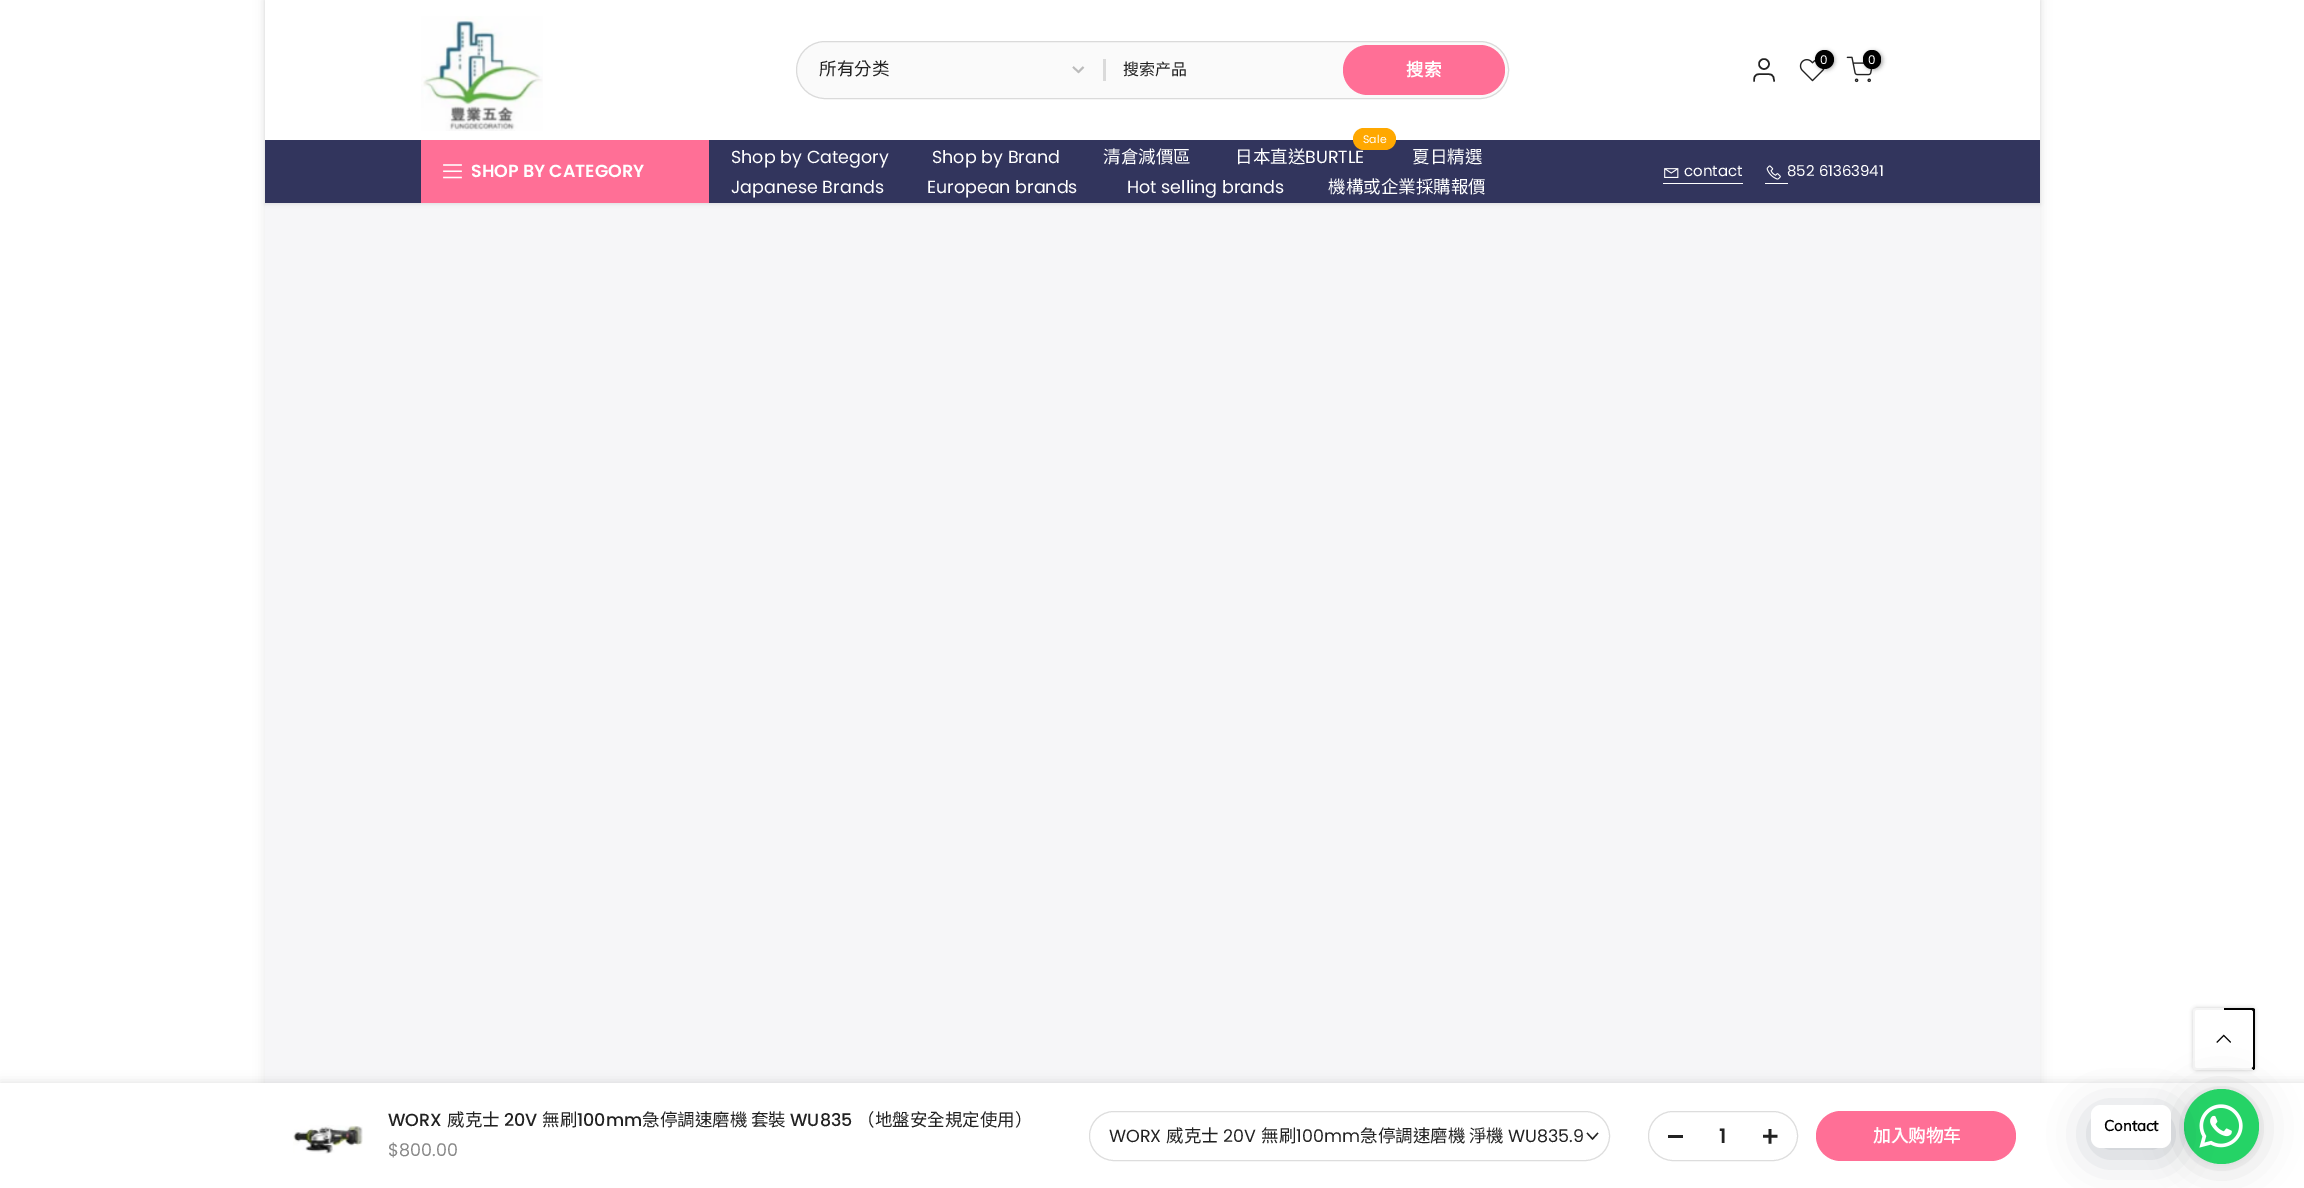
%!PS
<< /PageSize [2304 1188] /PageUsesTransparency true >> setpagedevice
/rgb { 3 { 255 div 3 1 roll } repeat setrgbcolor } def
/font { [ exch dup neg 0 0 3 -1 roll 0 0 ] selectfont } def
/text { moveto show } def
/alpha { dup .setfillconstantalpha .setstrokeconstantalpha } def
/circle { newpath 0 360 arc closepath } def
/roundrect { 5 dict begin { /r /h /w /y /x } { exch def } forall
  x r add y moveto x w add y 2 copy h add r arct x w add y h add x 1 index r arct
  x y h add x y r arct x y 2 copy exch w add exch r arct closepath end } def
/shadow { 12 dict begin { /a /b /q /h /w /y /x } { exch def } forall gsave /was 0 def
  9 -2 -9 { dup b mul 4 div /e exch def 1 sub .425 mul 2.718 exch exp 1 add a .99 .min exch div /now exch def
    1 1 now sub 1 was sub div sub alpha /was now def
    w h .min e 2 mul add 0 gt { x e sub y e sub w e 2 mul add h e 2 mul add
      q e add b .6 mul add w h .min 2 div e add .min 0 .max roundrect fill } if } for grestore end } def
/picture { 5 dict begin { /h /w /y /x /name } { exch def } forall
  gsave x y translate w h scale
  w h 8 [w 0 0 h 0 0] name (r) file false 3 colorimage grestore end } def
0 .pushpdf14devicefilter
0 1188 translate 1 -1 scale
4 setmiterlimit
255 255 255 rgb
0 0 2304 1188 rectfill
0 0 0 rgb
265 -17 1775 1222 0 5.5 0.08 shadow
246 246 248 rgb
265 203 1775 880 rectfill
0 0 0 rgb
265 1 1775 203 0 2 0.1 shadow
255 255 255 rgb
265 0 1775 140 rectfill
(img_01.rgb) 421 16 122 115 picture
34 34 34 rgb
1.5 setlinewidth
1764 64 5 circle stroke
1 setlinecap
1 setlinejoin
1774 81 moveto 0 -7.5 -3.5 -7 -10 -7 rcurveto -7 0 -10 -0.5 -10 7 rcurveto stroke
(img_02.rgb) 1799 59 26 23 picture
0 0 0 rgb
1816 51 19 19 9.5 2 0.3 shadow
1824.5 59.5 9.5 circle fill
(img_03.rgb) 1846 56 27 27 picture
1864 51 19 19 9.5 2 0.3 shadow
1863 50 18 19 9 roundrect fill
250 250 250 rgb
796.5 41.5 712 57 28.5 roundrect gsave fill grestore
218 218 218 rgb
1 setlinewidth
0 setlinecap
0 setlinejoin
stroke
187 187 187 rgb
1.8 setlinewidth
1073 67 moveto 5.5 5 rlineto 5 -5 rlineto stroke
218 218 218 rgb
1103 59 3 22 rectfill
255 111 150 rgb
1343 45 162 50 25 roundrect fill
50 53 93 rgb
265 140 1775 63 rectfill
255 111 150 rgb
421 140 288 63 rectfill
(img_04.rgb) 443 164 19 15 picture
255 168 0 rgb
1353 128 43 22 11 roundrect fill
255 255 255 rgb
1663 183 80 1 rectfill
(img_05.rgb) 1664 168 15 10 picture
1765 183 23 1 rectfill
(img_06.rgb) 1766 165 15 15 picture
0 0 0 rgb
2193 1008 62 62 4 2 0.2 shadow
0 1083 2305 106 0 5.5 0.12 shadow
2224 1039 moveto 29 31 rlineto 1 0 2 -1 2 -2 rcurveto 0 -58 rlineto 0 -1 -1 -2 -3 -2 rcurveto -28 0 rlineto closepath fill
245 245 245 rgb
2224 1039 moveto 0 -31 rlineto -24 0 rlineto -9 0 -7 1 -7 12 rcurveto 0 38 rlineto 0 5 -2 12 3 12 rcurveto 57 0 rlineto closepath fill
255 255 255 rgb
2195 1010 58 58 2.5 roundrect fill
(img_07.rgb) 2216 1034 15 9 picture
0 1083 2304 105 rectfill
(img_08.rgb) 293 1125 70 29 picture
221 221 221 rgb
1 setlinewidth
1089.5 1111.5 520 49 24.5 roundrect stroke
34 34 34 rgb
1.3 setlinewidth
2 setlinecap
1597.5 1133.5 moveto -5 5.5 rlineto -5 -5.5 rlineto stroke
221 221 221 rgb
1 setlinewidth
0 setlinecap
1648.5 1111.5 149 49 24.5 roundrect stroke
34 34 34 rgb
1668 1135 15 3 rectfill
(img_09.rgb) 1763 1129 15 15 picture
255 111 150 rgb
1816 1111 200 50 25 roundrect fill
0 0 0 rgb
2184 1091 75 75 37.5 20 0.16 shadow
2184 1090 75 75 37.5 4 0.06 shadow
37 211 102 rgb
2221.5 1126.5 37.5 circle fill
0 18 46 rgb
2091 1113 80 42 10 20 0.24 shadow
255 255 255 rgb
2091 1105 80 43 10 roundrect fill
(img_10.rgb) 2199 1104 44 44 picture
/Poppins-Regular 12 font
(0) 1820 64 text
(0) 1868 64 text
/NotoSansCJKTC-Regular 17.5 font
34 34 34 rgb
(所有分类) 819 75 text
/NotoSansCJKTC-Regular 16 font
(搜索产品) 1123 75 text
/NotoSansCJKTC-Bold 17.5 font
255 255 255 rgb
(搜索) 1406 76 text
/Poppins-SemiBold 17.5 font
(SHOP BY CATEGORY) 471 177 text
/Poppins-Regular 17.5 font
(Shop by Category) 731 163 text
(Shop by Brand) 932 163 text
/NotoSansCJKTC-Regular 17.5 font
(清倉減價區) 1103 163 text
/Poppins-Regular 11 font
(Sale) 1363 143 text
/NotoSansCJKTC-Regular 17.5 font
(日本直送) 1235 163 text
/Poppins-Regular 17.5 font
(BURTLE) 1305 163 text
/NotoSansCJKTC-Regular 17.5 font
(夏日精選) 1412 163 text
/Poppins-Regular 17.5 font
(Japanese Brands) 731 193 text
(European brands) 927 193 text
(Hot selling brands) 1127 193 text
/NotoSansCJKTC-Regular 17.5 font
(機構或企業採購報價) 1328 193 text
/Poppins-Regular 15 font
(contact) 1684 176 text
(852 61363941) 1787 176 text
/Poppins-Medium 17.5 font
34 34 34 rgb
(WORX) 388 1126 text
/NotoSansCJKTC-Regular 17.5 font
(威克士) 447 1126 text
/Poppins-Medium 17.5 font
(20V) 504 1126 text
/NotoSansCJKTC-Regular 17.5 font
(無刷) 542 1126 text
/Poppins-Medium 17.5 font
(100mm) 577 1126 text
/NotoSansCJKTC-Regular 17.5 font
(急停調速磨機 套裝) 642 1126 text
/Poppins-Medium 17.5 font
(WU835) 790 1126 text
/NotoSansCJKTC-Regular 17.5 font
(（地盤安全規定使用）) 857 1126 text
/Poppins-Regular 17.5 font
135 135 135 rgb
($800.00) 388 1156 text
34 34 34 rgb
(WORX) 1109 1142 text
/NotoSansCJKTC-Regular 17.5 font
(威克士) 1166 1142 text
/Poppins-Regular 17.5 font
(20V) 1223 1142 text
/NotoSansCJKTC-Regular 17.5 font
(無刷) 1261 1142 text
/Poppins-Regular 17.5 font
(100mm) 1296 1142 text
/NotoSansCJKTC-Regular 17.5 font
(急停調速磨機 淨機) 1360 1142 text
/Poppins-Regular 17.5 font
(WU835.9) 1508 1142 text
/Poppins-SemiBold 20 font
(1) 1719 1143 text
/NotoSansCJKTC-Bold 17.5 font
255 255 255 rgb
(加入购物车) 1873 1142 text
/Muli-Bold 15 font
0 0 0 rgb
(Contact) 2104 1131 text
.poppdf14devicefilter showpage
